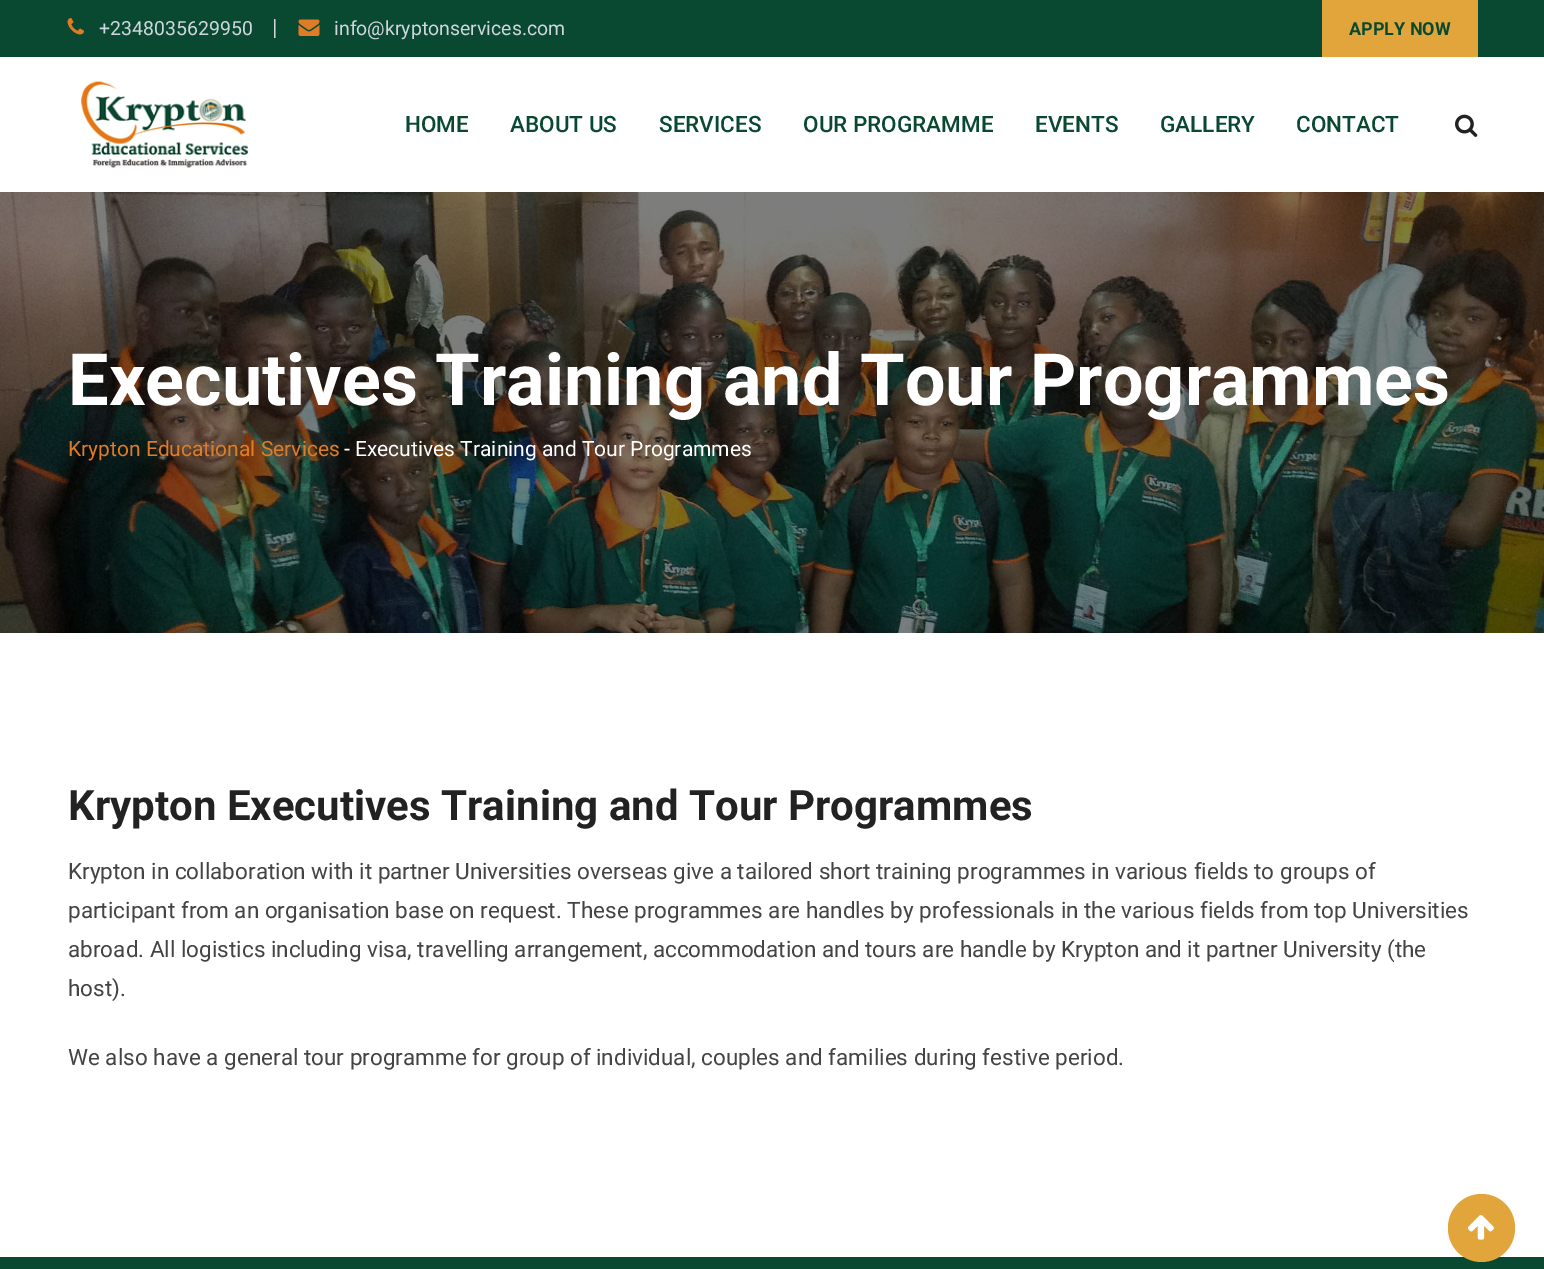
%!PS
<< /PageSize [1544 1269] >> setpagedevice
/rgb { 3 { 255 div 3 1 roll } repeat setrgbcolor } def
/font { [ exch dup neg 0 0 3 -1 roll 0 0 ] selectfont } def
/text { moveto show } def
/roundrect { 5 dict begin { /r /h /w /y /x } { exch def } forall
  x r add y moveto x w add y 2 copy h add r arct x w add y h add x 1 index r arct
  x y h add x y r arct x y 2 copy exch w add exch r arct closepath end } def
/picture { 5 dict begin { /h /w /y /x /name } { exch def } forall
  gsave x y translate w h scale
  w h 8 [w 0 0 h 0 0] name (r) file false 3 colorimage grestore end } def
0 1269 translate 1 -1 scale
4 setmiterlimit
255 255 255 rgb
0 0 1544 1269 rectfill
9 73 49 rgb
0 0 1544 57 rectfill
(img_01.rgb) 67 18 17 17 picture
(img_02.rgb) 298 19 22 17 picture
226 165 59 rgb
1322 0 156 57 rectfill
(img_03.rgb) 81 81 167 87 picture
(img_04.rgb) 1455 114 23 23 picture
(img_05.rgb) 0 192 1544 441 picture
9 73 49 rgb
0 1257 1544 12 rectfill
226 165 59 rgb
1448 1194 67 68 33.5 roundrect fill
(img_06.rgb) 1467 1215 27 25 picture
/Roboto-Regular 19.5 font
208 214 221 rgb
(+2348035629950) 99 35 text
/Roboto-Regular 22.5 font
(|) 272 35 text
/Roboto-Regular 19.5 font
(info@kryptonservices.com) 334 35 text
/Roboto-Bold 18 font
9 73 49 rgb
(APPLY NOW) 1349 35 text
/Roboto-Medium 22.5 font
(HOME) 405 132 text
(ABOUT US) 510 132 text
(SERVICES) 659 132 text
(OUR PROGRAMME) 803 132 text
(EVENTS) 1035 132 text
(GALLERY) 1160 132 text
(CONTACT) 1296 132 text
/Roboto-Bold 72 font
255 255 255 rgb
(Executives Training and Tour Programmes) 68 405 text
/Roboto-Regular 21 font
224 124 38 rgb
(Krypton Educational Services) 68 456 text
255 255 255 rgb
(- Executives Training and Tour Programmes) 344 456 text
/Roboto-Bold 42 font
34 34 34 rgb
(Krypton Executives Training and Tour Programmes) 68 820 text
/Roboto-Regular 22.5 font
68 68 68 rgb
(Krypton in collaboration with it partner Universities overseas give a tailored short training programmes in various fields to groups of) 68 879 text
(participant from an organisation base on request. These programmes are handles by professionals in the various fields from top Universities) 68 918 text
(abroad. All logistics including visa, travelling arrangement, accommodation and tours are handle by Krypton and it partner University \(the) 68 957 text
(host\).) 68 996 text
(We also have a general tour programme for group of individual, couples and families during festive period.) 68 1065 text
showpage
